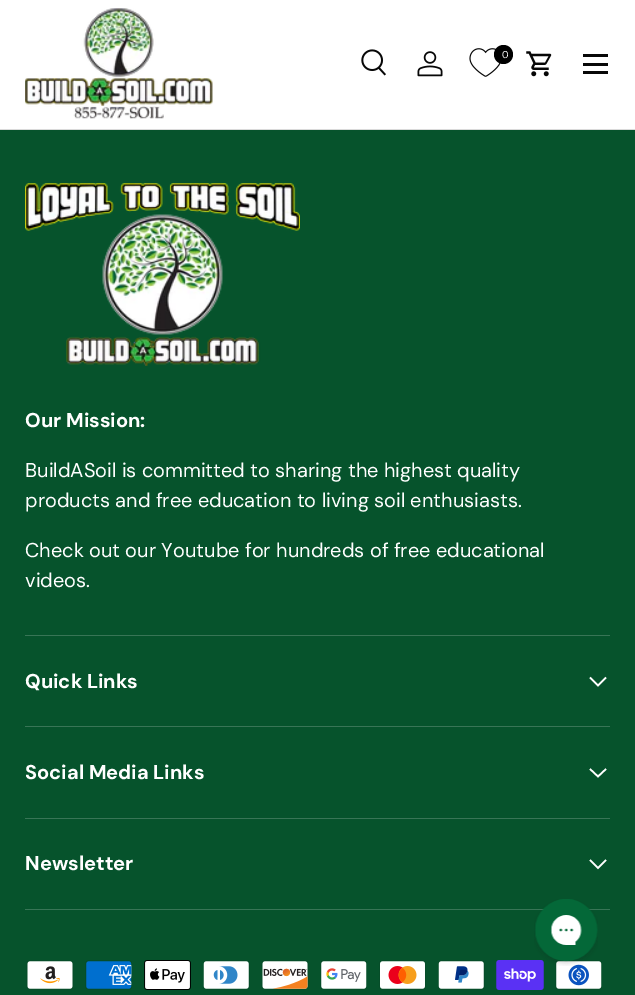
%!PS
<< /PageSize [635 995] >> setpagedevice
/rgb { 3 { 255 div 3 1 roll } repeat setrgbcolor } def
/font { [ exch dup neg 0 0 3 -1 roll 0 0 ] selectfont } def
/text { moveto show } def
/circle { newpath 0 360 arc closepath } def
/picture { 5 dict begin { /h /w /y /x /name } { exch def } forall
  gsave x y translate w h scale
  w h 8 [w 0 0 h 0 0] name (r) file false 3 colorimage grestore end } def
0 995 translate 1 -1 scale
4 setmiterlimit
6 83 44 rgb
0 0 635 995 rectfill
255 255 255 rgb
0 0 635 129 rectfill
218 218 218 rgb
0 129 635 1 rectfill
(img_01.rgb) 25 8 188 111 picture
(img_02.rgb) 361 49 25 27 picture
(img_03.rgb) 417 51 26 26 picture
(img_04.rgb) 469 48 32 29 picture
0 0 0 rgb
503.5 54.5 9.5 circle fill
(img_05.rgb) 526 51 26 26 picture
7 7 7 rgb
583 54 25 3 rectfill
583 71 25 3 rectfill
583 63 25 3 rectfill
(img_06.rgb) 25 183 275 183 picture
56 117 86 rgb
25 635 585 1 rectfill
25 726 585 1 rectfill
255 255 255 rgb
1.6 setlinewidth
606 677.5 moveto -8 8 rlineto -8 -8 rlineto stroke
56 117 86 rgb
25 818 585 1 rectfill
255 255 255 rgb
606 769 moveto -8 7.5 rlineto -8 -7.5 rlineto stroke
56 117 86 rgb
25 909 585 1 rectfill
255 255 255 rgb
606 860 moveto -8 8 rlineto -8 -8 rlineto stroke
(img_07.rgb) 26 960 48 30 picture
(img_08.rgb) 85 960 47 30 picture
(img_09.rgb) 144 960 47 30 picture
(img_10.rgb) 203 960 47 30 picture
(img_11.rgb) 261 960 48 30 picture
(img_12.rgb) 320 960 47 30 picture
(img_13.rgb) 379 960 47 30 picture
(img_14.rgb) 438 960 47 30 picture
(img_15.rgb) 496 960 48 30 picture
(img_16.rgb) 555 960 47 30 picture
(img_17.rgb) 534 899 64 67 picture
/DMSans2-Regular 10 font
(0) 502 58 text
/DMSans-Bold 20 font
(Our Mission:) 25 427 text
/DMSans-Regular 20 font
(BuildASoil is committed to sharing the highest quality) 25 477 text
(products and free education to living soil enthusiasts.) 25 507 text
(Check out our Youtube for hundreds of free educational) 25 557 text
(videos.) 25 587 text
/DMSans-Bold 20 font
(Quick Links) 25 688 text
(Social Media Links) 25 779 text
(Newsletter) 25 870 text
showpage
